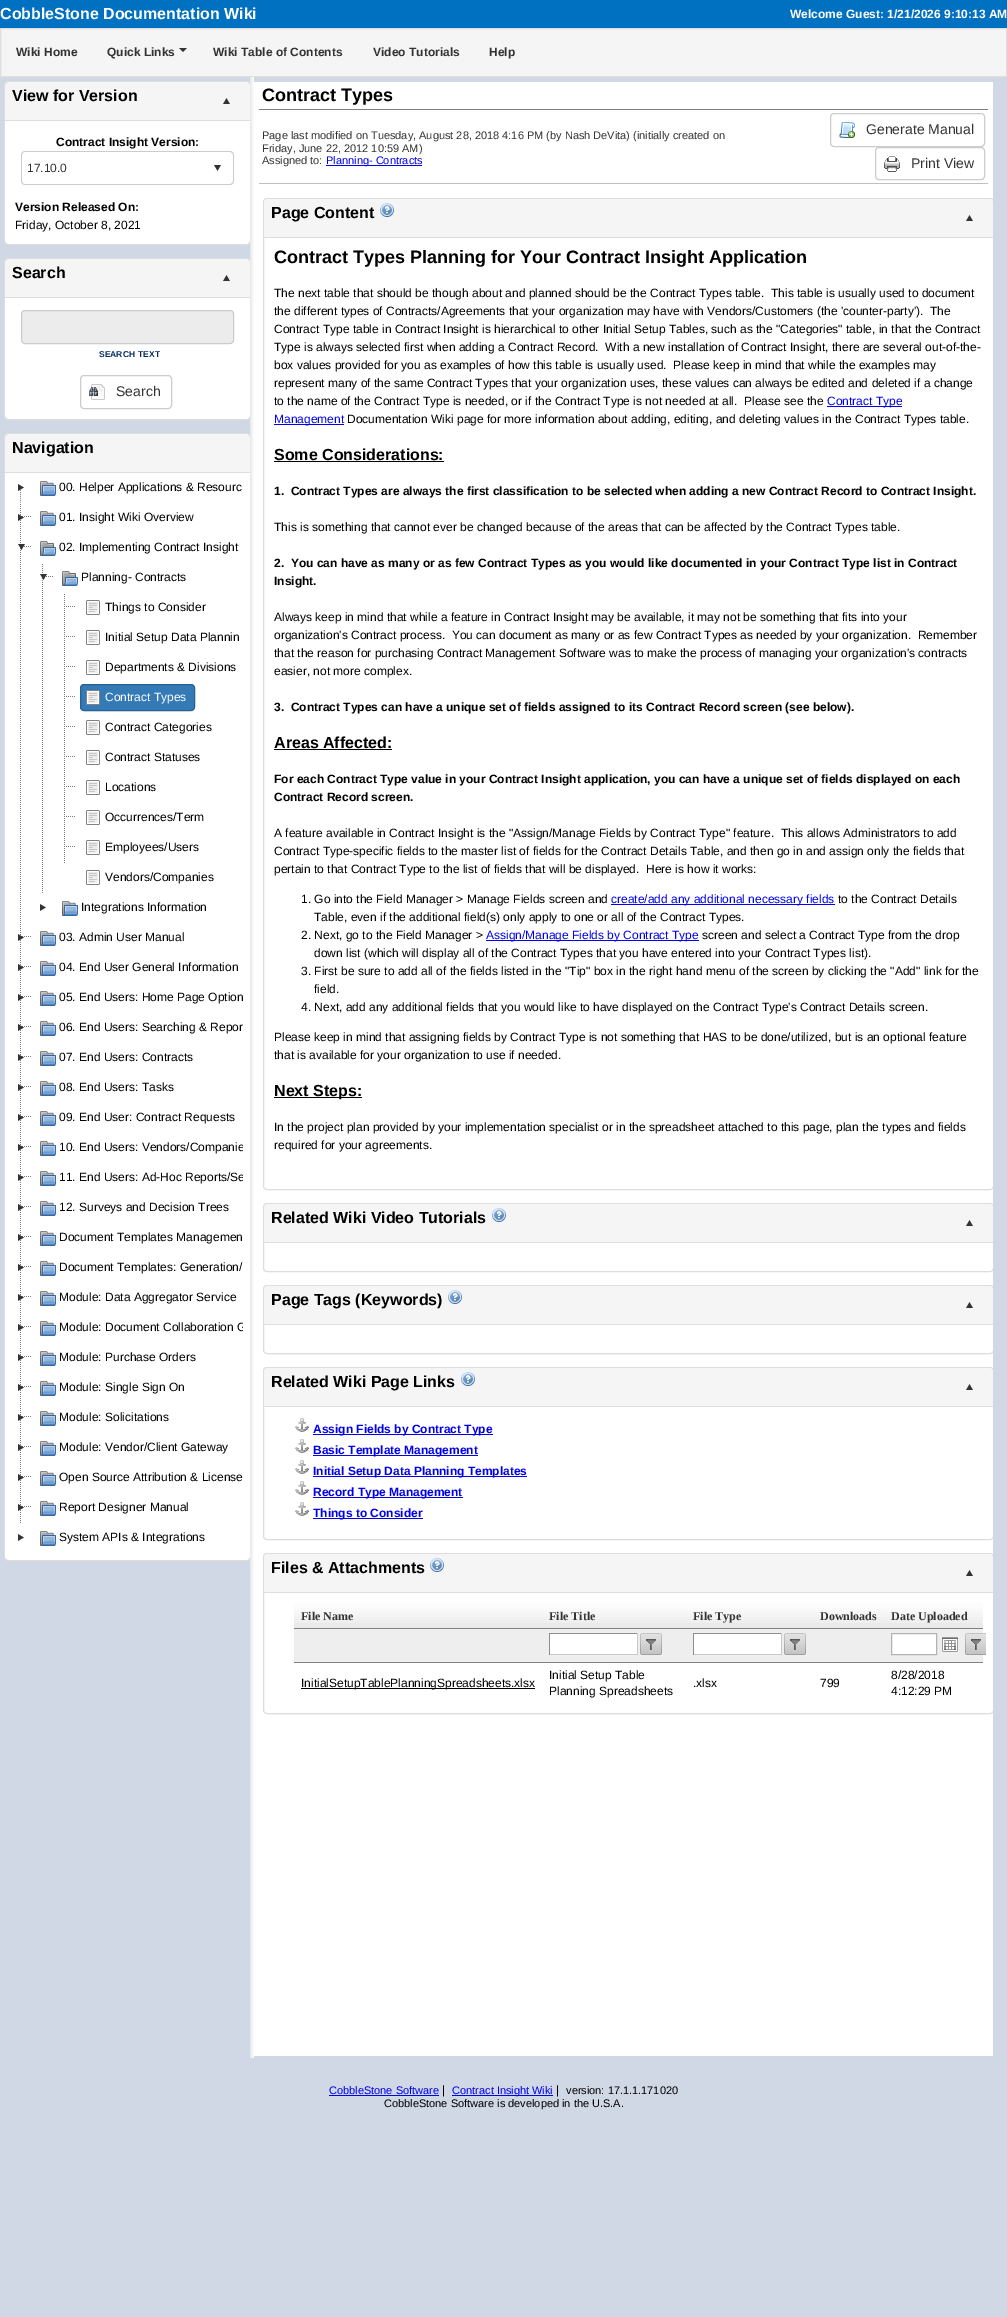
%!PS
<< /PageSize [1007 2317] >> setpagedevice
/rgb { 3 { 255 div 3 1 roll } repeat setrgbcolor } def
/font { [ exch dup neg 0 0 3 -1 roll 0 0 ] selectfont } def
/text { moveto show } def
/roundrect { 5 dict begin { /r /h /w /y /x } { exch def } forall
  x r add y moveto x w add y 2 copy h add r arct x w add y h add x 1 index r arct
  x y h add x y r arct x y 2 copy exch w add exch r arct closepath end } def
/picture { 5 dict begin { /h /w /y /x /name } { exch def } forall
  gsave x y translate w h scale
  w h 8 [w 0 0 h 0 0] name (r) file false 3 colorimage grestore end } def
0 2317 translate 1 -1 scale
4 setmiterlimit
207 216 228 rgb
0 0 1007 2317 rectfill
0 112 192 rgb
0 0 1007 28 rectfill
245 245 245 rgb
0.5 28.5 moveto 1006 0 rlineto 0 48 rlineto -1006 0 rlineto closepath gsave fill grestore
222 222 222 rgb
stroke
51 51 51 rgb
179 48 moveto 8 0 rlineto -4 4 rlineto closepath fill
gsave 250 77 moveto 4 0 rlineto 0 1981 rlineto -4 0 rlineto closepath clip newpath
<< /ShadingType 2 /ColorSpace /DeviceRGB /Coords [254 1068 250 1068] /Extend [true true] /Function << /FunctionType 2 /Domain [0 1] /C0 [1 1 1] /C1 [0.902 0.902 0.902] /N 1 >> >> shfill grestore
gsave
0 77 250 1981 rectclip
221 221 221 rgb
4.5 81.5 246 163 3.5 roundrect stroke
grestore
245 245 245 rgb
9 82 moveto 3 0 rlineto 0 39 rlineto -7 0 rlineto 0 -35 rlineto 0 -2 2 -4 4 -4 rcurveto closepath fill
221 221 221 rgb
5 120 238 1 rectfill
gsave
5 82 245 162 3 roundrect clip newpath
245 245 245 rgb
243 82 moveto 3 0 rlineto 2 0 4 2 4 4 rcurveto 0 35 rlineto -7 0 rlineto closepath fill
grestore
243 120 7 1 rectfill
245 245 245 rgb
12 82 231 38 rectfill
(img_01.rgb) 223 98 7 6 picture
255 255 255 rgb
5 121 245 116 rectfill
204 204 204 rgb
25 151 moveto 176 0 rlineto 0 34 rlineto -176 0 rlineto -2 0 -4 -2 -4 -4 rcurveto 0 -26 rlineto 0 -2 2 -4 4 -4 rcurveto closepath 25 152 moveto 176 0 rlineto 0 32 rlineto -176 0 rlineto -2 0 -3 -1 -3 -3 rcurveto 0 -26 rlineto 0 -2 1 -3 3 -3 rcurveto closepath eofill
201 151 moveto 29 0 rlineto 2 0 4 2 4 4 rcurveto 0 26 rlineto 0 2 -2 4 -4 4 rcurveto -29 0 rlineto closepath 201 152 moveto 29 0 rlineto 1.5 0 3 1.5 3 3 rcurveto 0 26 rlineto 0 1.5 -1.5 3 -3 3 rcurveto -29 0 rlineto closepath eofill
(img_02.rgb) 214 165 7 6 picture
gsave
5 82 245 162 3 roundrect clip newpath
255 255 255 rgb
5 237 moveto 7 0 rlineto 0 7 rlineto -3 0 rlineto -2 0 -4 -2 -4 -4 rcurveto closepath fill
grestore
255 255 255 rgb
12 237 231 7 rectfill
243 237 moveto 7 0 rlineto 0 3 rlineto 0 2 -2 4 -4 4 rcurveto -3 0 rlineto closepath fill
gsave
0 77 250 1981 rectclip
221 221 221 rgb
4.5 258.5 246 161 3.5 roundrect stroke
grestore
245 245 245 rgb
9 259 moveto 3 0 rlineto 0 39 rlineto -7 0 rlineto 0 -35 rlineto 0 -2 2 -4 4 -4 rcurveto closepath fill
221 221 221 rgb
5 297 238 1 rectfill
gsave
5 259 245 160 3 roundrect clip newpath
245 245 245 rgb
243 259 moveto 3 0 rlineto 2 0 4 2 4 4 rcurveto 0 35 rlineto -7 0 rlineto closepath fill
grestore
243 297 7 1 rectfill
245 245 245 rgb
12 259 231 38 rectfill
(img_01.rgb) 223 275 7 6 picture
255 255 255 rgb
5 298 245 114 rectfill
236 236 236 rgb
25 311 moveto -2 0 -3 1 -3 3 rcurveto 0 26 rlineto 0 2 1 3 3 3 rcurveto 205 0 rlineto 2 0 3 -1 3 -3 rcurveto 0 -26 rlineto 0 -2 -1 -3 -3 -3 rcurveto closepath fill
204 204 204 rgb
21.5 310.5 212 33 3.5 roundrect stroke
80.5 375.5 91 33 3.5 roundrect stroke
(img_03.rgb) 89 384 16 16 picture
gsave
5 259 245 160 3 roundrect clip newpath
255 255 255 rgb
5 412 moveto 7 0 rlineto 0 7 rlineto -3 0 rlineto -2 0 -4 -2 -4 -4 rcurveto closepath fill
grestore
255 255 255 rgb
12 412 231 7 rectfill
243 412 moveto 7 0 rlineto 0 3 rlineto 0 2 -2 4 -4 4 rcurveto -3 0 rlineto closepath fill
gsave
0 77 250 1981 rectclip
221 221 221 rgb
4.5 433.5 246 1127 3.5 roundrect stroke
grestore
245 245 245 rgb
9 434 moveto 3 0 rlineto 0 39 rlineto -7 0 rlineto 0 -35 rlineto 0 -2 2 -4 4 -4 rcurveto closepath fill
221 221 221 rgb
5 472 238 1 rectfill
gsave
5 434 245 1126 3 roundrect clip newpath
245 245 245 rgb
243 434 moveto 3 0 rlineto 2 0 4 2 4 4 rcurveto 0 35 rlineto -7 0 rlineto closepath fill
grestore
243 472 7 1 rectfill
245 245 245 rgb
12 434 231 38 rectfill
255 255 255 rgb
5 473 245 1080 rectfill
(img_04.rgb) 20 489 1 14 picture
(img_05.rgb) 18 484 6 7 picture
(img_06.rgb) 40 481 16 15 picture
(img_07.rgb) 20 504 1 29 picture
(img_08.rgb) 22 516 9 1 picture
(img_09.rgb) 18 514 6 7 picture
(img_06.rgb) 40 511 16 15 picture
(img_10.rgb) 20 534 1 389 picture
(img_11.rgb) 24 546 7 1 picture
(img_12.rgb) 18 544 7 6 picture
(img_13.rgb) 40 541 16 15 picture
(img_14.rgb) 42 564 1 329 picture
(img_11.rgb) 46 576 7 1 picture
(img_12.rgb) 40 574 7 6 picture
(img_13.rgb) 62 571 16 15 picture
(img_07.rgb) 64 594 1 29 picture
(img_08.rgb) 66 606 9 1 picture
(img_15.rgb) 86 600 14 15 picture
(img_07.rgb) 64 624 1 29 picture
(img_08.rgb) 66 636 9 1 picture
(img_15.rgb) 86 630 14 15 picture
(img_07.rgb) 64 654 1 29 picture
(img_08.rgb) 66 666 9 1 picture
(img_15.rgb) 86 660 14 15 picture
(img_07.rgb) 64 684 1 29 picture
(img_08.rgb) 66 696 9 1 picture
51 122 183 rgb
80.5 684.5 114 26 3.5 roundrect gsave fill grestore
40 96 144 rgb
stroke
(img_16.rgb) 86 690 14 15 picture
(img_07.rgb) 64 714 1 29 picture
(img_08.rgb) 66 726 9 1 picture
(img_15.rgb) 86 720 14 15 picture
(img_07.rgb) 64 744 1 29 picture
(img_08.rgb) 66 756 9 1 picture
(img_15.rgb) 86 750 14 15 picture
(img_07.rgb) 64 774 1 29 picture
(img_08.rgb) 66 786 9 1 picture
(img_15.rgb) 86 780 14 15 picture
(img_07.rgb) 64 804 1 29 picture
(img_08.rgb) 66 816 9 1 picture
(img_15.rgb) 86 810 14 15 picture
(img_07.rgb) 64 834 1 29 picture
(img_08.rgb) 66 846 9 1 picture
(img_15.rgb) 86 840 14 15 picture
(img_15.rgb) 86 870 14 15 picture
(img_17.rgb) 40 904 6 7 picture
(img_06.rgb) 62 901 16 15 picture
(img_07.rgb) 20 924 1 29 picture
(img_08.rgb) 22 936 9 1 picture
(img_09.rgb) 18 934 6 7 picture
(img_06.rgb) 40 931 16 15 picture
(img_07.rgb) 20 954 1 29 picture
(img_08.rgb) 22 966 9 1 picture
(img_09.rgb) 18 964 6 7 picture
(img_06.rgb) 40 961 16 15 picture
(img_07.rgb) 20 984 1 29 picture
(img_08.rgb) 22 996 9 1 picture
(img_09.rgb) 18 994 6 7 picture
(img_06.rgb) 40 991 16 15 picture
(img_07.rgb) 20 1014 1 29 picture
(img_08.rgb) 22 1026 9 1 picture
(img_09.rgb) 18 1024 6 7 picture
(img_06.rgb) 40 1021 16 15 picture
(img_07.rgb) 20 1044 1 29 picture
(img_08.rgb) 22 1056 9 1 picture
(img_09.rgb) 18 1054 6 7 picture
(img_06.rgb) 40 1051 16 15 picture
(img_07.rgb) 20 1074 1 29 picture
(img_08.rgb) 22 1086 9 1 picture
(img_09.rgb) 18 1084 6 7 picture
(img_06.rgb) 40 1081 16 15 picture
(img_07.rgb) 20 1104 1 29 picture
(img_08.rgb) 22 1116 9 1 picture
(img_09.rgb) 18 1114 6 7 picture
(img_06.rgb) 40 1111 16 15 picture
(img_07.rgb) 20 1134 1 29 picture
(img_08.rgb) 22 1146 9 1 picture
(img_09.rgb) 18 1144 6 7 picture
(img_06.rgb) 40 1141 16 15 picture
(img_07.rgb) 20 1164 1 29 picture
(img_08.rgb) 22 1176 9 1 picture
(img_09.rgb) 18 1174 6 7 picture
(img_06.rgb) 40 1171 16 15 picture
(img_07.rgb) 20 1194 1 29 picture
(img_08.rgb) 22 1206 9 1 picture
(img_09.rgb) 18 1204 6 7 picture
(img_06.rgb) 40 1201 16 15 picture
(img_07.rgb) 20 1224 1 29 picture
(img_08.rgb) 22 1236 9 1 picture
(img_09.rgb) 18 1234 6 7 picture
(img_06.rgb) 40 1231 16 15 picture
(img_07.rgb) 20 1254 1 29 picture
(img_08.rgb) 22 1266 9 1 picture
(img_09.rgb) 18 1264 6 7 picture
(img_06.rgb) 40 1261 16 15 picture
(img_07.rgb) 20 1284 1 29 picture
(img_08.rgb) 22 1296 9 1 picture
(img_09.rgb) 18 1294 6 7 picture
(img_06.rgb) 40 1291 16 15 picture
(img_07.rgb) 20 1314 1 29 picture
(img_08.rgb) 22 1326 9 1 picture
(img_09.rgb) 18 1324 6 7 picture
(img_06.rgb) 40 1321 16 15 picture
(img_07.rgb) 20 1344 1 29 picture
(img_08.rgb) 22 1356 9 1 picture
(img_09.rgb) 18 1354 6 7 picture
(img_06.rgb) 40 1351 16 15 picture
(img_07.rgb) 20 1374 1 29 picture
(img_08.rgb) 22 1386 9 1 picture
(img_09.rgb) 18 1384 6 7 picture
(img_06.rgb) 40 1381 16 15 picture
(img_07.rgb) 20 1404 1 29 picture
(img_08.rgb) 22 1416 9 1 picture
(img_09.rgb) 18 1414 6 7 picture
(img_06.rgb) 40 1411 16 15 picture
(img_07.rgb) 20 1434 1 29 picture
(img_08.rgb) 22 1446 9 1 picture
(img_09.rgb) 18 1444 6 7 picture
(img_06.rgb) 40 1441 16 15 picture
(img_07.rgb) 20 1464 1 29 picture
(img_08.rgb) 22 1476 9 1 picture
(img_09.rgb) 18 1474 6 7 picture
(img_06.rgb) 40 1471 16 15 picture
(img_07.rgb) 20 1494 1 29 picture
(img_08.rgb) 22 1506 9 1 picture
(img_09.rgb) 18 1504 6 7 picture
(img_06.rgb) 40 1501 16 15 picture
(img_17.rgb) 18 1534 6 7 picture
(img_06.rgb) 40 1531 16 15 picture
gsave
5 434 245 1126 3 roundrect clip newpath
255 255 255 rgb
5 1553 moveto 7 0 rlineto 0 7 rlineto -3 0 rlineto -2 0 -4 -2 -4 -4 rcurveto closepath fill
grestore
255 255 255 rgb
12 1553 231 7 rectfill
243 1553 moveto 7 0 rlineto 0 3 rlineto 0 2 -2 4 -4 4 rcurveto -3 0 rlineto closepath fill
254 82 739 1974 rectfill
128 128 128 rgb
259 109 729 1 rectfill
192 192 192 rgb
259 183 729 1 rectfill
0 0 238 rgb
326 165 96 1 rectfill
204 204 204 rgb
830.5 113.5 154 33 3.5 roundrect stroke
(img_18.rgb) 839 122 16 16 picture
875.5 147.5 109 32 3.5 roundrect stroke
(img_19.rgb) 884 156 16 16 picture
gsave
254 77 739 1979 rectclip
221 221 221 rgb
263.5 198.5 730 991 3.5 roundrect stroke
grestore
245 245 245 rgb
268 199 moveto 3 0 rlineto 0 39 rlineto -7 0 rlineto 0 -35 rlineto 0 -2 2 -4 4 -4 rcurveto closepath fill
221 221 221 rgb
264 237 722 1 rectfill
gsave
264 199 729 990 3 roundrect clip newpath
245 245 245 rgb
986 199 moveto 3 0 rlineto 2 0 4 2 4 4 rcurveto 0 35 rlineto -7 0 rlineto closepath fill
grestore
986 237 7 1 rectfill
245 245 245 rgb
271 199 715 38 rectfill
(img_20.rgb) 380 203 14 14 picture
(img_01.rgb) 966 215 7 6 picture
0 0 238 rgb
827 406 75 1 rectfill
274 424 70 1 rectfill
0 0 0 rgb
274 461 170 1 rectfill
274 749 118 1 rectfill
0 0 238 rgb
611 904 224 1 rectfill
486 940 213 1 rectfill
0 0 0 rgb
274 1097 88 1 rectfill
gsave
254 77 739 1979 rectclip
221 221 221 rgb
263.5 1203.5 730 68 3.5 roundrect stroke
grestore
245 245 245 rgb
268 1204 moveto 3 0 rlineto 0 39 rlineto -7 0 rlineto 0 -35 rlineto 0 -2 2 -4 4 -4 rcurveto closepath fill
221 221 221 rgb
264 1242 722 1 rectfill
gsave
264 1204 729 67 3 roundrect clip newpath
245 245 245 rgb
986 1204 moveto 3 0 rlineto 2 0 4 2 4 4 rcurveto 0 35 rlineto -7 0 rlineto closepath fill
grestore
986 1242 7 1 rectfill
245 245 245 rgb
271 1204 715 38 rectfill
(img_20.rgb) 492 1208 14 14 picture
(img_01.rgb) 966 1220 7 6 picture
gsave
254 77 739 1979 rectclip
221 221 221 rgb
263.5 1285.5 730 68 3.5 roundrect stroke
grestore
268 1286 moveto 3 0 rlineto 0 39 rlineto -7 0 rlineto 0 -35 rlineto 0 -2 2 -4 4 -4 rcurveto closepath fill
221 221 221 rgb
264 1324 722 1 rectfill
gsave
264 1286 729 67 3 roundrect clip newpath
245 245 245 rgb
986 1286 moveto 3 0 rlineto 2 0 4 2 4 4 rcurveto 0 35 rlineto -7 0 rlineto closepath fill
grestore
986 1324 7 1 rectfill
245 245 245 rgb
271 1286 715 38 rectfill
(img_20.rgb) 448 1290 14 14 picture
(img_01.rgb) 966 1302 7 6 picture
gsave
254 77 739 1979 rectclip
221 221 221 rgb
263.5 1367.5 730 172 3.5 roundrect stroke
grestore
268 1368 moveto 3 0 rlineto 0 39 rlineto -7 0 rlineto 0 -35 rlineto 0 -2 2 -4 4 -4 rcurveto closepath fill
221 221 221 rgb
264 1406 722 1 rectfill
gsave
264 1368 729 171 3 roundrect clip newpath
245 245 245 rgb
986 1368 moveto 3 0 rlineto 2 0 4 2 4 4 rcurveto 0 35 rlineto -7 0 rlineto closepath fill
grestore
986 1406 7 1 rectfill
245 245 245 rgb
271 1368 715 38 rectfill
(img_20.rgb) 461 1372 14 14 picture
(img_01.rgb) 966 1384 7 6 picture
(img_21.rgb) 295 1418 14 14 picture
0 0 238 rgb
313 1434 180 1 rectfill
(img_21.rgb) 295 1439 14 14 picture
313 1455 165 1 rectfill
(img_21.rgb) 295 1460 14 14 picture
313 1476 214 1 rectfill
(img_21.rgb) 295 1481 14 14 picture
313 1497 150 1 rectfill
(img_21.rgb) 295 1502 14 14 picture
313 1518 110 1 rectfill
gsave
254 77 739 1979 rectclip
221 221 221 rgb
263.5 1553.5 730 160 3.5 roundrect stroke
grestore
245 245 245 rgb
268 1554 moveto 3 0 rlineto 0 39 rlineto -7 0 rlineto 0 -35 rlineto 0 -2 2 -4 4 -4 rcurveto closepath fill
221 221 221 rgb
264 1592 722 1 rectfill
gsave
264 1554 729 159 3 roundrect clip newpath
245 245 245 rgb
986 1554 moveto 3 0 rlineto 2 0 4 2 4 4 rcurveto 0 35 rlineto -7 0 rlineto closepath fill
grestore
986 1592 7 1 rectfill
245 245 245 rgb
271 1554 715 38 rectfill
(img_20.rgb) 430 1558 14 14 picture
(img_01.rgb) 966 1570 7 6 picture
234 234 234 rgb
294 1623 689 5 rectfill
(img_22.rgb) 294 1603 248 20 picture
130 130 130 rgb
294 1628 689 1 rectfill
(img_23.rgb) 542 1603 144 20 picture
(img_24.rgb) 686 1603 127 20 picture
(img_25.rgb) 813 1603 71 20 picture
(img_26.rgb) 884 1603 99 20 picture
238 238 238 rgb
294 1629 689 33 rectfill
255 255 255 rgb
550 1634 87 20 rectfill
142 142 142 rgb
549 1633 89 1 rectfill
201 201 201 rgb
637 1633 1 22 rectfill
549 1654 89 1 rectfill
142 142 142 rgb
549 1633 1 22 rectfill
(img_27.rgb) 640 1633 22 22 picture
255 255 255 rgb
694 1634 87 20 rectfill
142 142 142 rgb
693 1633 89 1 rectfill
201 201 201 rgb
781 1633 1 22 rectfill
693 1654 89 1 rectfill
142 142 142 rgb
693 1633 1 22 rectfill
(img_27.rgb) 784 1633 22 22 picture
255 255 255 rgb
891.5 1633.5 moveto 45 0 rlineto 0 21 rlineto -45 0 rlineto closepath gsave fill grestore
179 179 179 rgb
stroke
(img_28.rgb) 942 1637 16 15 picture
(img_29.rgb) 965 1633 21 22 picture
130 130 130 rgb
294 1662 689 1 rectfill
0 0 0 rgb
301 1688 234 1 rectfill
0 0 238 rgb
329 2095 110 1 rectfill
452 2095 101 1 rectfill
/LiberationSans-Bold 16 font
255 255 255 rgb
(CobbleStone Documentation Wiki) 0 19 text
/LiberationSans-Bold 12 font
(Welcome Guest: 1/21/2026 9:10:13 AM) 790 18 text
51 51 51 rgb
(Wiki Home) 16 56 text
(Quick Links) 107 56 text
(Wiki Table of Contents) 213 56 text
(Video Tutorials) 373 56 text
(Help) 489 56 text
/LiberationSans-Bold 16 font
0 0 0 rgb
(View for Version) 12 101 text
/LiberationSans-Bold 12 font
(Contract Insight Version:) 56 146 text
/LiberationSans-Regular 12 font
51 51 51 rgb
(17.10.0) 27 172 text
/LiberationSans-Bold 12 font
0 0 0 rgb
(Version Released On:) 15 211 text
/LiberationSans-Regular 12 font
(Friday, October 8, 2021) 15 229 text
/LiberationSans-Bold 16 font
(Search) 12 278 text
/LiberationSans-Bold 8.5 font
7 43 97 rgb
(SEARCH) 99 357 text
(TEXT) 138 357 text
/LiberationSans-Regular 14 font
51 51 51 rgb
(Search) 116 396 text
/LiberationSans-Bold 16 font
0 0 0 rgb
(Navigation) 12 453 text
/LiberationSans-Regular 12 font
(00. Helper Applications & Resourc) 59 491 text
(01. Insight Wiki Overview) 59 521 text
(02. Implementing Contract Insight) 59 551 text
(Planning- Contracts) 81 581 text
(Things to Consider) 105 611 text
(Initial Setup Data Plannin) 105 641 text
(Departments & Divisions) 105 671 text
255 255 255 rgb
(Contract Types) 105 701 text
0 0 0 rgb
(Contract Categories) 105 731 text
(Contract Statuses) 105 761 text
(Locations) 105 791 text
(Occurrences/Term) 105 821 text
(Employees/Users) 105 851 text
(Vendors/Companies) 105 881 text
(Integrations Information) 81 911 text
(03. Admin User Manual) 59 941 text
(04. End User General Information) 59 971 text
(05. End Users: Home Page Option) 59 1001 text
(06. End Users: Searching & Repor) 59 1031 text
(07. End Users: Contracts) 59 1061 text
(08. End Users: Tasks) 59 1091 text
(09. End User: Contract Requests) 59 1121 text
gsave
12 473 231 1080 rectclip
(10. End Users: Vendors/Companie) 59 1151 text
(11. End Users: Ad-Hoc Reports/Se) 59 1181 text
grestore
(12. Surveys and Decision Trees) 59 1211 text
(Document Templates Managemen) 59 1241 text
(Document Templates: Generation/) 59 1271 text
(Module: Data Aggregator Service) 59 1301 text
gsave
12 473 231 1080 rectclip
(Module: Document Collaboration G) 59 1331 text
grestore
(Module: Purchase Orders) 59 1361 text
(Module: Single Sign On) 59 1391 text
(Module: Solicitations) 59 1421 text
(Module: Vendor/Client Gateway) 59 1451 text
(Open Source Attribution & License) 59 1481 text
(Report Designer Manual) 59 1511 text
(System APIs & Integrations) 59 1541 text
/LiberationSans-Bold 18 font
(Contract Types) 262 101 text
/LiberationSans-Regular 11 font
51 51 51 rgb
(Page last modified on Tuesday, August 28, 2018 4:16 PM \(by Nash DeVita\) \(initially created on) 262 139 text
(Friday, June 22, 2012 10:59 AM\)) 262 152 text
(Assigned to:) 262 164 text
0 0 238 rgb
(Planning- Contracts) 326 164 text
/LiberationSans-Regular 14 font
51 51 51 rgb
(Generate Manual) 866 134 text
(Print View) 911 168 text
/LiberationSans-Bold 16 font
0 0 0 rgb
(Page Content) 271 218 text
/LiberationSans-Bold 18 font
(Contract Types Planning for Your Contract Insight Application) 274 263 text
/LiberationSans-Regular 12 font
(The next table that should be though about and planned should be the Contract Types table.  This table is usually used to document) 274 297 text
(the different types of Contracts/Agreements that your organization may have with Vendors/Customers \(the 'counter-party'\).  The) 274 315 text
(Contract Type table in Contract Insight is hierarchical to other Initial Setup Tables, such as the "Categories" table, in that the Contract) 274 333 text
(Type is always selected first when adding a Contract Record.  With a new installation of Contract Insight, there are several out-of-the-) 274 351 text
(box values provided for you as examples of how this table is usually used.  Please keep in mind that while the examples may) 274 369 text
(represent many of the same Contract Types that your organization uses, these values can always be edited and deleted if a change) 274 387 text
(to the name of the Contract Type is needed, or if the Contract Type is not needed at all.  Please see the) 274 405 text
0 0 238 rgb
(Contract Type) 827 405 text
(Management) 274 423 text
0 0 0 rgb
(Documentation Wiki page for more information about adding, editing, and deleting values in the Contract Types table.) 347 423 text
/LiberationSans-Bold 16 font
(Some Considerations:) 274 460 text
/LiberationSans-Bold 12 font
(1.  Contract Types are always the first classification to be selected when adding a new Contract Record to Contract Insight.) 274 495 text
/LiberationSans-Regular 12 font
(This is something that cannot ever be changed because of the areas that can be affected by the Contract Types table.) 274 531 text
/LiberationSans-Bold 12 font
(2.  You can have as many or as few Contract Types as you would like documented in your Contract Type list in Contract) 274 567 text
(Insight.) 274 585 text
/LiberationSans-Regular 12 font
(Always keep in mind that while a feature in Contract Insight may be available, it may not be something that fits into your) 274 621 text
(organization's Contract process.  You can document as many or as few Contract Types as needed by your organization.  Remember) 274 639 text
(that the reason for purchasing Contract Management Software was to make the process of managing your organization's contracts) 274 657 text
(easier, not more complex.) 274 675 text
/LiberationSans-Bold 12 font
(3.  Contract Types can have a unique set of fields assigned to its Contract Record screen \(see below\).) 274 711 text
/LiberationSans-Bold 16 font
(Areas Affected:) 274 748 text
/LiberationSans-Bold 12 font
(For each Contract Type value in your Contract Insight application, you can have a unique set of fields displayed on each) 274 783 text
(Contract Record screen.) 274 801 text
/LiberationSans-Regular 12 font
(A feature available in Contract Insight is the "Assign/Manage Fields by Contract Type" feature.  This allows Administrators to add) 274 837 text
(Contract Type-specific fields to the master list of fields for the Contract Details Table, and then go in and assign only the fields that) 274 855 text
(pertain to that Contract Type to the list of fields that will be displayed.  Here is how it works:) 274 873 text
(1. Go into the Field Manager > Manage Fields screen and) 301 903 text
0 0 238 rgb
(create/add any additional necessary fields) 611 903 text
0 0 0 rgb
(to the Contract Details) 838 903 text
(Table, even if the additional field\(s\) only apply to one or all of the Contract Types.) 314 921 text
(2. Next, go to the Field Manager >) 301 939 text
0 0 238 rgb
(Assign/Manage Fields by Contract Type) 486 939 text
0 0 0 rgb
(screen and select a Contract Type from the drop) 702 939 text
(down list \(which will display all of the Contract Types that you have entered into your Contract Types list\).) 314 957 text
(3. First be sure to add all of the fields listed in the "Tip" box in the right hand menu of the screen by clicking the "Add" link for the) 301 975 text
(field.) 314 993 text
(4. Next, add any additional fields that you would like to have displayed on the Contract Type's Contract Details screen.) 301 1011 text
(Please keep in mind that assigning fields by Contract Type is not something that HAS to be done/utilized, but is an optional feature) 274 1041 text
(that is available for your organization to use if needed.) 274 1059 text
/LiberationSans-Bold 16 font
(Next Steps:) 274 1096 text
/LiberationSans-Regular 12 font
(In the project plan provided by your implementation specialist or in the spreadsheet attached to this page, plan the types and fields) 274 1131 text
(required for your agreements.) 274 1149 text
/LiberationSans-Bold 16 font
(Related Wiki Video Tutorials) 271 1223 text
(Page Tags \(Keywords\)) 271 1305 text
(Related Wiki Page Links) 271 1387 text
/LiberationSans-Bold 12 font
0 0 238 rgb
(Assign Fields by Contract Type) 313 1433 text
(Basic Template Management) 313 1454 text
(Initial Setup Data Planning Templates) 313 1475 text
(Record Type Management) 313 1496 text
(Things to Consider) 313 1517 text
/LiberationSans-Bold 16 font
0 0 0 rgb
(Files & Attachments) 271 1573 text
/LiberationSerif-Bold 12 font
51 51 51 rgb
(File Name) 301 1620 text
(File Title) 549 1620 text
(File Type) 693 1620 text
(Downloads) 820 1620 text
(Date Uploaded) 891 1620 text
/LiberationSans-Regular 12 font
0 0 0 rgb
(InitialSetupTablePlanningSpreadsheets.xlsx) 301 1687 text
(Initial Setup Table) 549 1679 text
(Planning Spreadsheets) 549 1695 text
(.xlsx) 693 1687 text
(799) 820 1687 text
(8/28/2018) 891 1679 text
(4:12:29 PM) 891 1695 text
/LiberationSans-Regular 11 font
0 0 238 rgb
(CobbleStone Software) 329 2094 text
/LiberationSans-Regular 12 font
0 0 0 rgb
(|) 442 2094 text
/LiberationSans-Regular 11 font
0 0 238 rgb
(Contract Insight Wiki) 452 2094 text
/LiberationSans-Regular 12 font
0 0 0 rgb
(|) 556 2094 text
/LiberationSans-Regular 11 font
(version: 17.1.1.171020) 566 2094 text
(CobbleStone Software is developed in the U.S.A.) 384 2107 text
showpage
